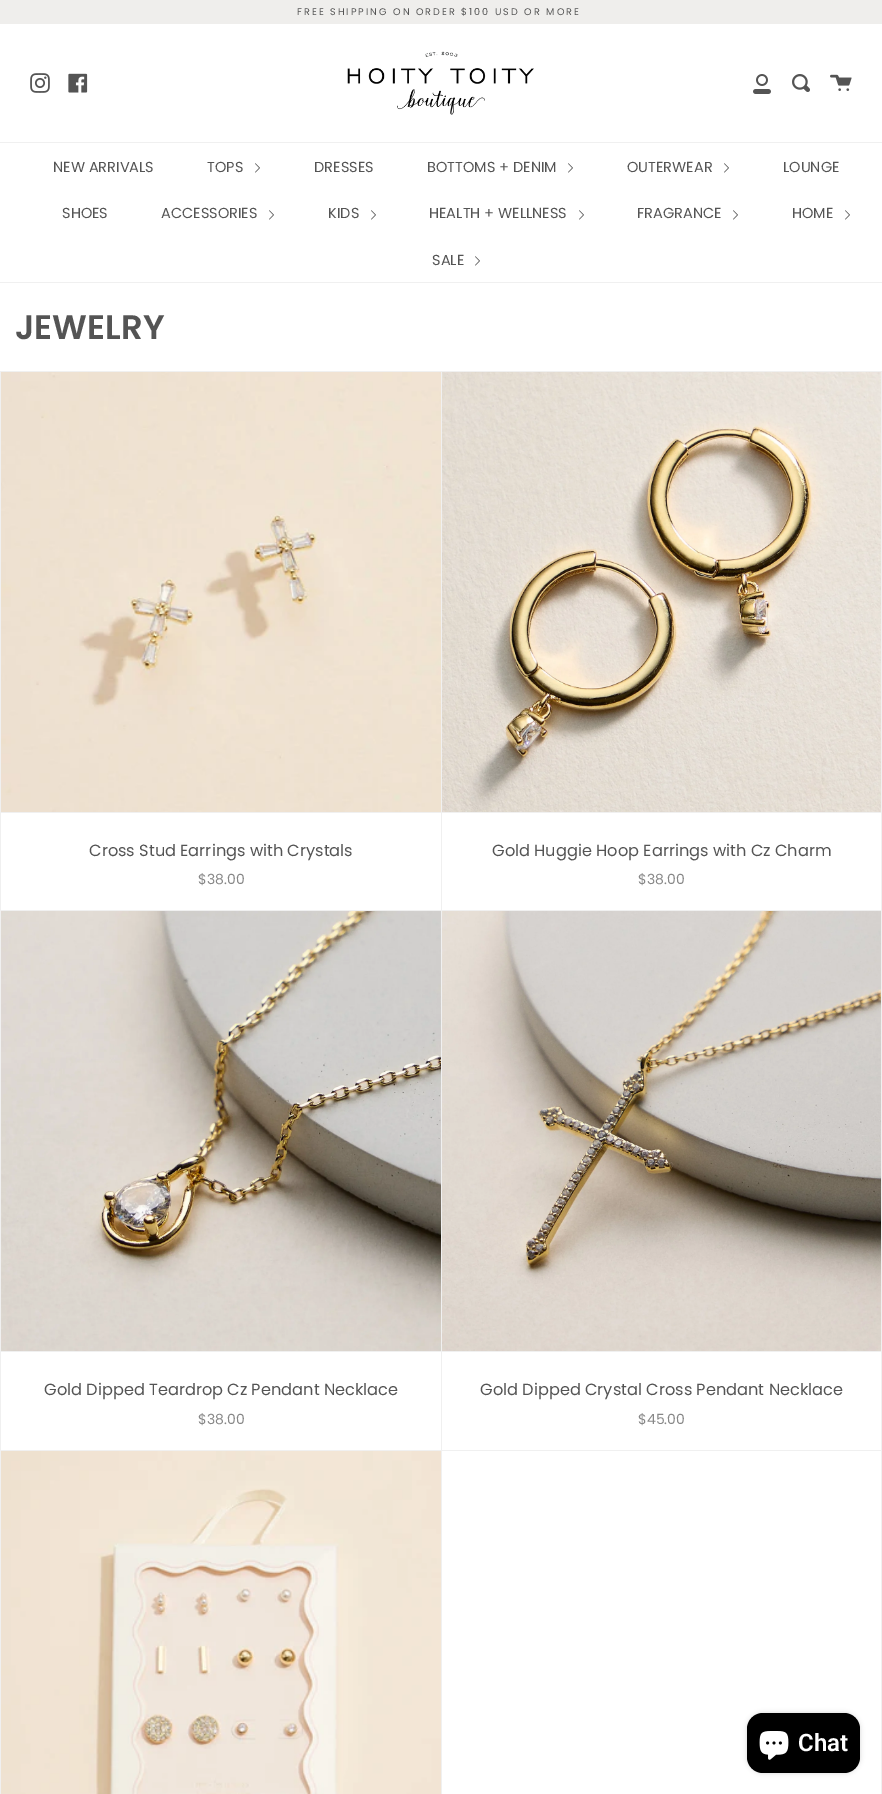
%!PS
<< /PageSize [882 1794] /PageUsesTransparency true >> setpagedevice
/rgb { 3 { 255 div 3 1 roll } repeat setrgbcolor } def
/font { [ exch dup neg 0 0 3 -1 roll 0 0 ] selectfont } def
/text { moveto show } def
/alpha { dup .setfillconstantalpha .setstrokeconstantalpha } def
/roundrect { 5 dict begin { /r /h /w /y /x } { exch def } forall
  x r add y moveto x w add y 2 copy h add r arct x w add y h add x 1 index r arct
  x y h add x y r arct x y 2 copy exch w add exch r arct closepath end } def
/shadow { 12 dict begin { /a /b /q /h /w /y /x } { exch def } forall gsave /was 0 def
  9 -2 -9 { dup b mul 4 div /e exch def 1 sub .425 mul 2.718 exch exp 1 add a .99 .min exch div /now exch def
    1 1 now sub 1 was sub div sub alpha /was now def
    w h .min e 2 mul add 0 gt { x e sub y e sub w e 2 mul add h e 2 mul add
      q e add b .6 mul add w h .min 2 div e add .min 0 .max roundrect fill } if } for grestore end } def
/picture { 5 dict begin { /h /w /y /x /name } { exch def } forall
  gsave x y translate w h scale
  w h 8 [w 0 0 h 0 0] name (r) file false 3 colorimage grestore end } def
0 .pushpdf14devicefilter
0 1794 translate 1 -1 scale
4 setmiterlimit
255 255 255 rgb
0 0 882 1794 rectfill
239 238 236 rgb
0 0 882 24 rectfill
(img_01.rgb) 30 73 20 20 picture
(img_02.rgb) 68 73 20 20 picture
(img_03.rgb) 347 51 187 64 picture
(img_04.rgb) 753 74 18 20 picture
(img_05.rgb) 792 74 18 18 picture
(img_06.rgb) 830 74 22 17 picture
240 240 240 rgb
0 142 882 1 rectfill
0 282 882 1 rectfill
(img_07.rgb) 255 163 5 10 picture
(img_07.rgb) 568 163 5 10 picture
(img_07.rgb) 724 163 5 10 picture
(img_07.rgb) 269 210 5 10 picture
(img_07.rgb) 371 210 5 10 picture
(img_07.rgb) 579 210 5 10 picture
(img_07.rgb) 733 210 5 10 picture
(img_07.rgb) 845 210 5 10 picture
(img_07.rgb) 475 256 5 10 picture
0 371 1 1423 rectfill
1 371 881 1 rectfill
441 371 1 540 rectfill
1 812 440 1 rectfill
(img_08.rgb) 1 372 440 440 picture
881 371 1 540 rectfill
442 812 439 1 rectfill
(img_09.rgb) 442 372 439 440 picture
1 910 881 1 rectfill
441 910 1 541 rectfill
1 1351 440 1 rectfill
(img_10.rgb) 1 911 440 440 picture
881 910 1 541 rectfill
442 1351 439 1 rectfill
(img_11.rgb) 442 911 439 440 picture
1 1450 881 1 rectfill
441 1450 1 344 rectfill
(img_12.rgb) 1 1451 440 343 picture
881 1450 1 344 rectfill
0 0 0 rgb
747 1713 113 60 16 2.5 0.15 shadow
747 1713 113 60 16 roundrect fill
(img_13.rgb) 759 1731 30 29 picture
/Poppins-Regular 9.6 font
84 84 84 rgb
297 15 moveto 2 0 (FREE SHIPPING ON ORDER $100 USD OR MORE) ashow
/Poppins-Regular 14.5 font
(NEW ARRIVALS) 53 172 text
(TOPS) 207 172 text
(DRESSES) 314 172 text
(BOTTOMS + DENIM) 427 172 text
(OUTERWEAR) 627 172 text
(LOUNGE) 783 172 text
(SHOES) 62 218 text
(ACCESSORIES) 161 218 text
(KIDS) 328 218 text
(HEALTH + WELLNESS) 429 218 text
(FRAGRANCE) 637 218 text
(HOME) 792 218 text
(SALE) 432 265 text
/Poppins-SemiBold 34 font
(JEWELRY) 15 339 text
/Poppins-Regular 16.2 font
(Cross Stud Earrings with Crystals) 89 856 text
/Poppins-Regular 14 font
135 135 135 rgb
($38.00) 198 884 text
/Poppins-Regular 16.2 font
84 84 84 rgb
(Gold Huggie Hoop Earrings with Cz Charm) 492 856 text
/Poppins-Regular 14 font
135 135 135 rgb
($38.00) 638 884 text
/Poppins-Regular 16.2 font
84 84 84 rgb
(Gold Dipped Teardrop Cz Pendant Necklace) 44 1395 text
/Poppins-Regular 14 font
135 135 135 rgb
($38.00) 198 1424 text
/Poppins-Regular 16.2 font
84 84 84 rgb
(Gold Dipped Crystal Cross Pendant Necklace) 480 1395 text
/Poppins-Regular 14 font
135 135 135 rgb
($45.00) 638 1424 text
/Roboto-SemiBold 24 font
255 255 255 rgb
(Chat) 798 1751 text
.poppdf14devicefilter showpage
